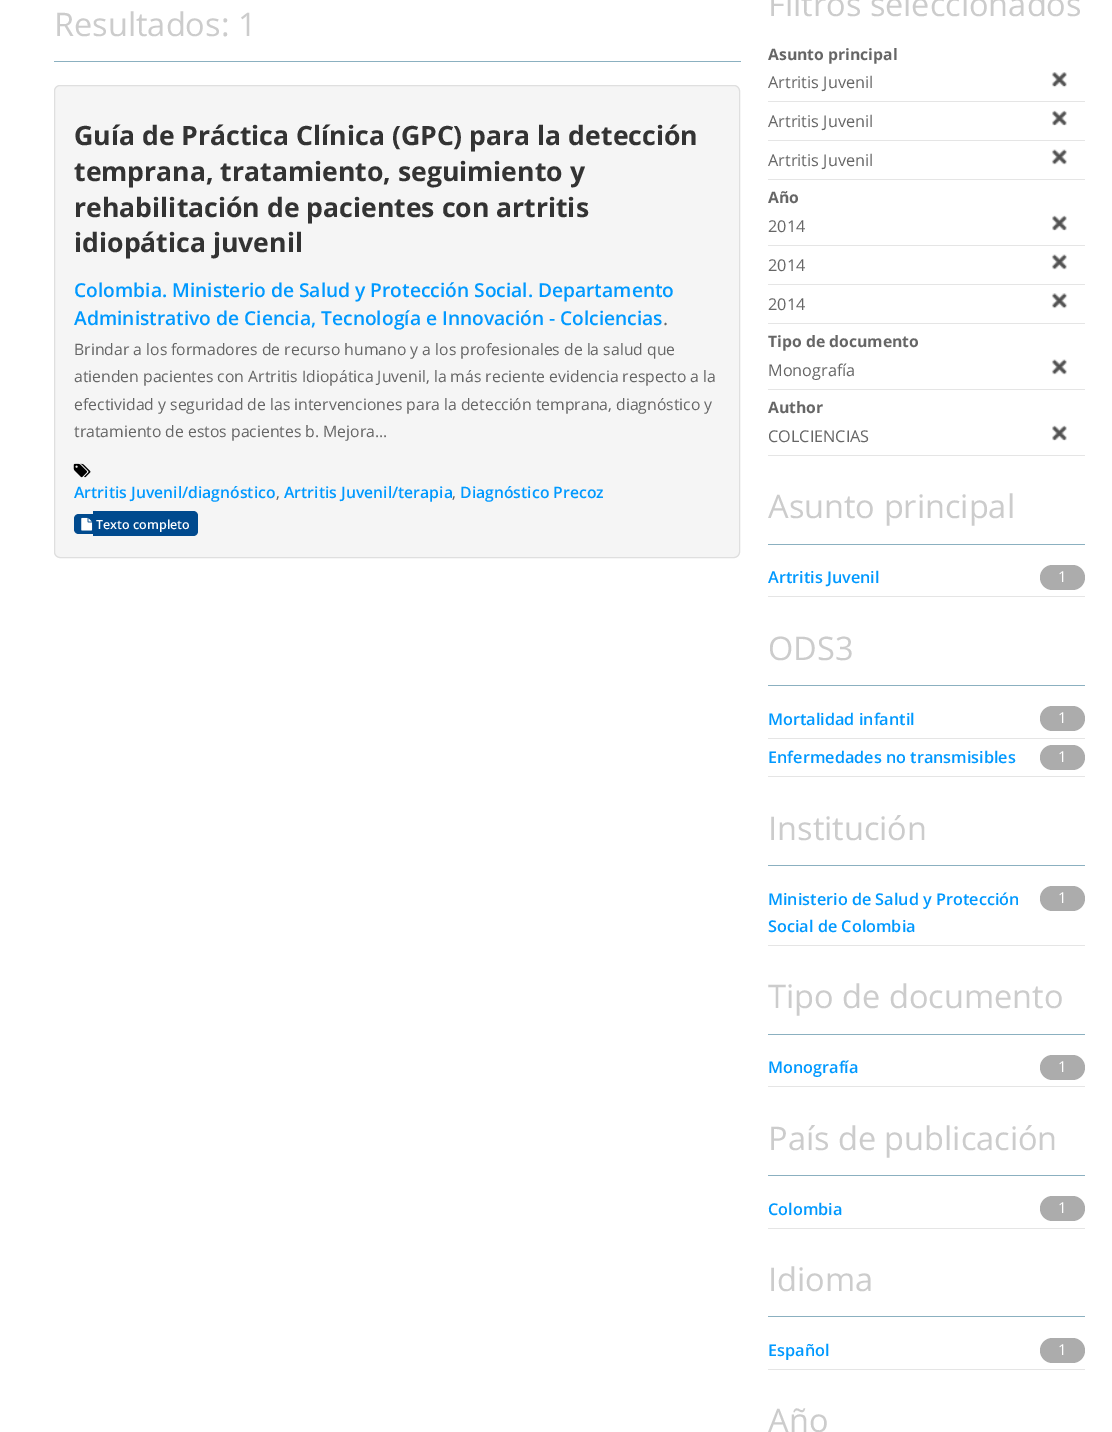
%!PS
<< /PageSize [1112 1432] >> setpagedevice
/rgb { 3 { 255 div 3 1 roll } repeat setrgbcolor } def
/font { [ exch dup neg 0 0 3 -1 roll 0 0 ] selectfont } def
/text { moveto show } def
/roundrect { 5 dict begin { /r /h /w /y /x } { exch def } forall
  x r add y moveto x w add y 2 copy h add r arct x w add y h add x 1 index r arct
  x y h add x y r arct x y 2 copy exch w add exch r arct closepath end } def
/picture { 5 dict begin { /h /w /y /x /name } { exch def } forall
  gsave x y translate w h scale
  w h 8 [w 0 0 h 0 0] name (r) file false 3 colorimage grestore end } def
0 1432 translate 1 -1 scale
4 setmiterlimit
255 255 255 rgb
0 0 1112 1432 rectfill
139 176 192 rgb
54 61 687 1 rectfill
245 245 245 rgb
54.5 85.5 685 472 5.5 roundrect gsave fill grestore
223 223 223 rgb
stroke
(img_01.rgb) 73 463 18 15 picture
0 74 142 rgb
79 514 moveto 14 0 rlineto 0 20 rlineto -14 0 rlineto -3 0 -5 -2 -5 -5 rcurveto 0 -10 rlineto 0 -3 2 -5 5 -5 rcurveto closepath fill
93 511 moveto 100 0 rlineto 3 0 5 2 5 5 rcurveto 0 15 rlineto 0 3 -2 5 -5 5 rcurveto -100 0 rlineto closepath fill
(img_02.rgb) 81 517 12 14 picture
229 229 229 rgb
768 101 317 1 rectfill
(img_03.rgb) 1051 72 16 16 picture
768 140 317 1 rectfill
(img_04.rgb) 1052 110 15 16 picture
768 179 317 1 rectfill
(img_05.rgb) 1051 149 16 16 picture
768 245 317 1 rectfill
(img_04.rgb) 1052 215 15 16 picture
768 284 317 1 rectfill
(img_05.rgb) 1051 254 16 16 picture
768 323 317 1 rectfill
(img_06.rgb) 1051 293 17 16 picture
768 389 317 1 rectfill
(img_05.rgb) 1051 359 16 16 picture
768 455 317 1 rectfill
(img_04.rgb) 1052 425 15 16 picture
139 176 192 rgb
768 544 317 1 rectfill
229 229 229 rgb
768 596 317 1 rectfill
172 172 172 rgb
1040 565 45 25 12.5 roundrect fill
139 176 192 rgb
768 685 317 1 rectfill
229 229 229 rgb
768 738 317 1 rectfill
172 172 172 rgb
1040 706 45 25 12.5 roundrect fill
229 229 229 rgb
768 776 317 1 rectfill
172 172 172 rgb
1040 745 45 25 12.5 roundrect fill
139 176 192 rgb
768 865 317 1 rectfill
229 229 229 rgb
768 945 317 1 rectfill
172 172 172 rgb
1040 886 45 25 12.5 roundrect fill
139 176 192 rgb
768 1034 317 1 rectfill
229 229 229 rgb
768 1086 317 1 rectfill
172 172 172 rgb
1040 1055 45 25 12.5 roundrect fill
139 176 192 rgb
768 1175 317 1 rectfill
229 229 229 rgb
768 1228 317 1 rectfill
172 172 172 rgb
1040 1196 45 25 12.5 roundrect fill
139 176 192 rgb
768 1316 317 1 rectfill
229 229 229 rgb
768 1369 317 1 rectfill
172 172 172 rgb
1040 1338 45 25 12.5 roundrect fill
/OpenSans-Regular 32.5 font
204 204 204 rgb
(Resultados: 1) 54 36 text
/OpenSans-Bold 26.6 font
51 51 51 rgb
(Guía de Práctica Clínica \(GPC\) para la detección) 74 145 text
(temprana, tratamiento, seguimiento y) 74 181 text
(rehabilitación de pacientes con artritis) 74 217 text
(idiopática juvenil) 74 252 text
/OpenSans-SemiBold 19.2 font
0 153 255 rgb
(Colombia. Ministerio de Salud y Protección Social. Departamento) 74 297 text
(Administrativo de Ciencia, Tecnología e Innovación - Colciencias) 74 325 text
/OpenSans-Regular 19.2 font
102 102 102 rgb
(.) 663 325 text
/OpenSans-Regular 15.75 font
(Brindar a los formadores de recurso humano y a los profesionales de la salud que) 74 355 text
(atienden pacientes con Artritis Idiopática Juvenil, la más reciente evidencia respecto a la) 74 382 text
(efectividad y seguridad de las intervenciones para la detección temprana, diagnóstico y) 74 410 text
(tratamiento de estos pacientes b. Mejora...) 74 437 text
/OpenSans-SemiBold 15.75 font
0 153 255 rgb
(Artritis Juvenil/diagnóstico) 74 498 text
/OpenSans-Regular 15.75 font
102 102 102 rgb
(,) 276 498 text
/OpenSans-SemiBold 15.75 font
0 153 255 rgb
(Artritis Juvenil/terapia) 284 498 text
/OpenSans-Regular 15.75 font
102 102 102 rgb
(,) 452 498 text
/OpenSans-SemiBold 15.75 font
0 153 255 rgb
(Diagnóstico Precoz) 460 498 text
/OpenSans-SemiBold 12.5 font
255 255 255 rgb
(Texto completo) 96 529 text
/OpenSans-Regular 32.5 font
204 204 204 rgb
(Filtros seleccionados) 768 16 text
/OpenSans-Bold 15.75 font
102 102 102 rgb
(Asunto principal) 768 60 text
/OpenSans-Regular 16.25 font
(Artritis Juvenil) 768 88 text
(Artritis Juvenil) 768 127 text
(Artritis Juvenil) 768 166 text
/OpenSans-Bold 15.75 font
(Año) 768 203 text
/OpenSans-Regular 16.25 font
(2014) 768 232 text
(2014) 768 271 text
(2014) 768 310 text
/OpenSans-Bold 15.75 font
(Tipo de documento) 768 347 text
/OpenSans-Regular 16.25 font
(Monografía) 768 376 text
/OpenSans-Bold 15.75 font
(Author) 768 413 text
/OpenSans-Regular 16.25 font
(COLCIENCIAS) 768 442 text
/OpenSans-Regular 32.5 font
204 204 204 rgb
(Asunto principal) 768 518 text
/OpenSans-SemiBold 16.25 font
0 153 255 rgb
(Artritis Juvenil) 768 583 text
/OpenSans-Regular 15 font
255 255 255 rgb
(1) 1058 582 text
/OpenSans-Regular 32.5 font
204 204 204 rgb
(ODS3) 768 660 text
/OpenSans-SemiBold 16.25 font
0 153 255 rgb
(Mortalidad infantil) 768 725 text
/OpenSans-Regular 15 font
255 255 255 rgb
(1) 1058 723 text
/OpenSans-SemiBold 16.25 font
0 153 255 rgb
(Enfermedades no transmisibles) 768 763 text
/OpenSans-Regular 15 font
255 255 255 rgb
(1) 1058 762 text
/OpenSans-Regular 32.5 font
204 204 204 rgb
(Institución) 768 840 text
/OpenSans-SemiBold 16.25 font
0 153 255 rgb
(Ministerio de Salud y Protección) 768 905 text
(Social de Colombia) 768 932 text
/OpenSans-Regular 15 font
255 255 255 rgb
(1) 1058 903 text
/OpenSans-Regular 32.5 font
204 204 204 rgb
(Tipo de documento) 768 1008 text
/OpenSans-SemiBold 16.25 font
0 153 255 rgb
(Monografía) 768 1073 text
/OpenSans-Regular 15 font
255 255 255 rgb
(1) 1058 1072 text
/OpenSans-Regular 32.5 font
204 204 204 rgb
(País de publicación) 768 1150 text
/OpenSans-SemiBold 16.25 font
0 153 255 rgb
(Colombia) 768 1215 text
/OpenSans-Regular 15 font
255 255 255 rgb
(1) 1058 1213 text
/OpenSans-Regular 32.5 font
204 204 204 rgb
(Idioma) 768 1291 text
/OpenSans-SemiBold 16.25 font
0 153 255 rgb
(Español) 768 1356 text
/OpenSans-Regular 15 font
255 255 255 rgb
(1) 1058 1355 text
/OpenSans-Regular 32.5 font
204 204 204 rgb
(Año) 768 1432 text
showpage
